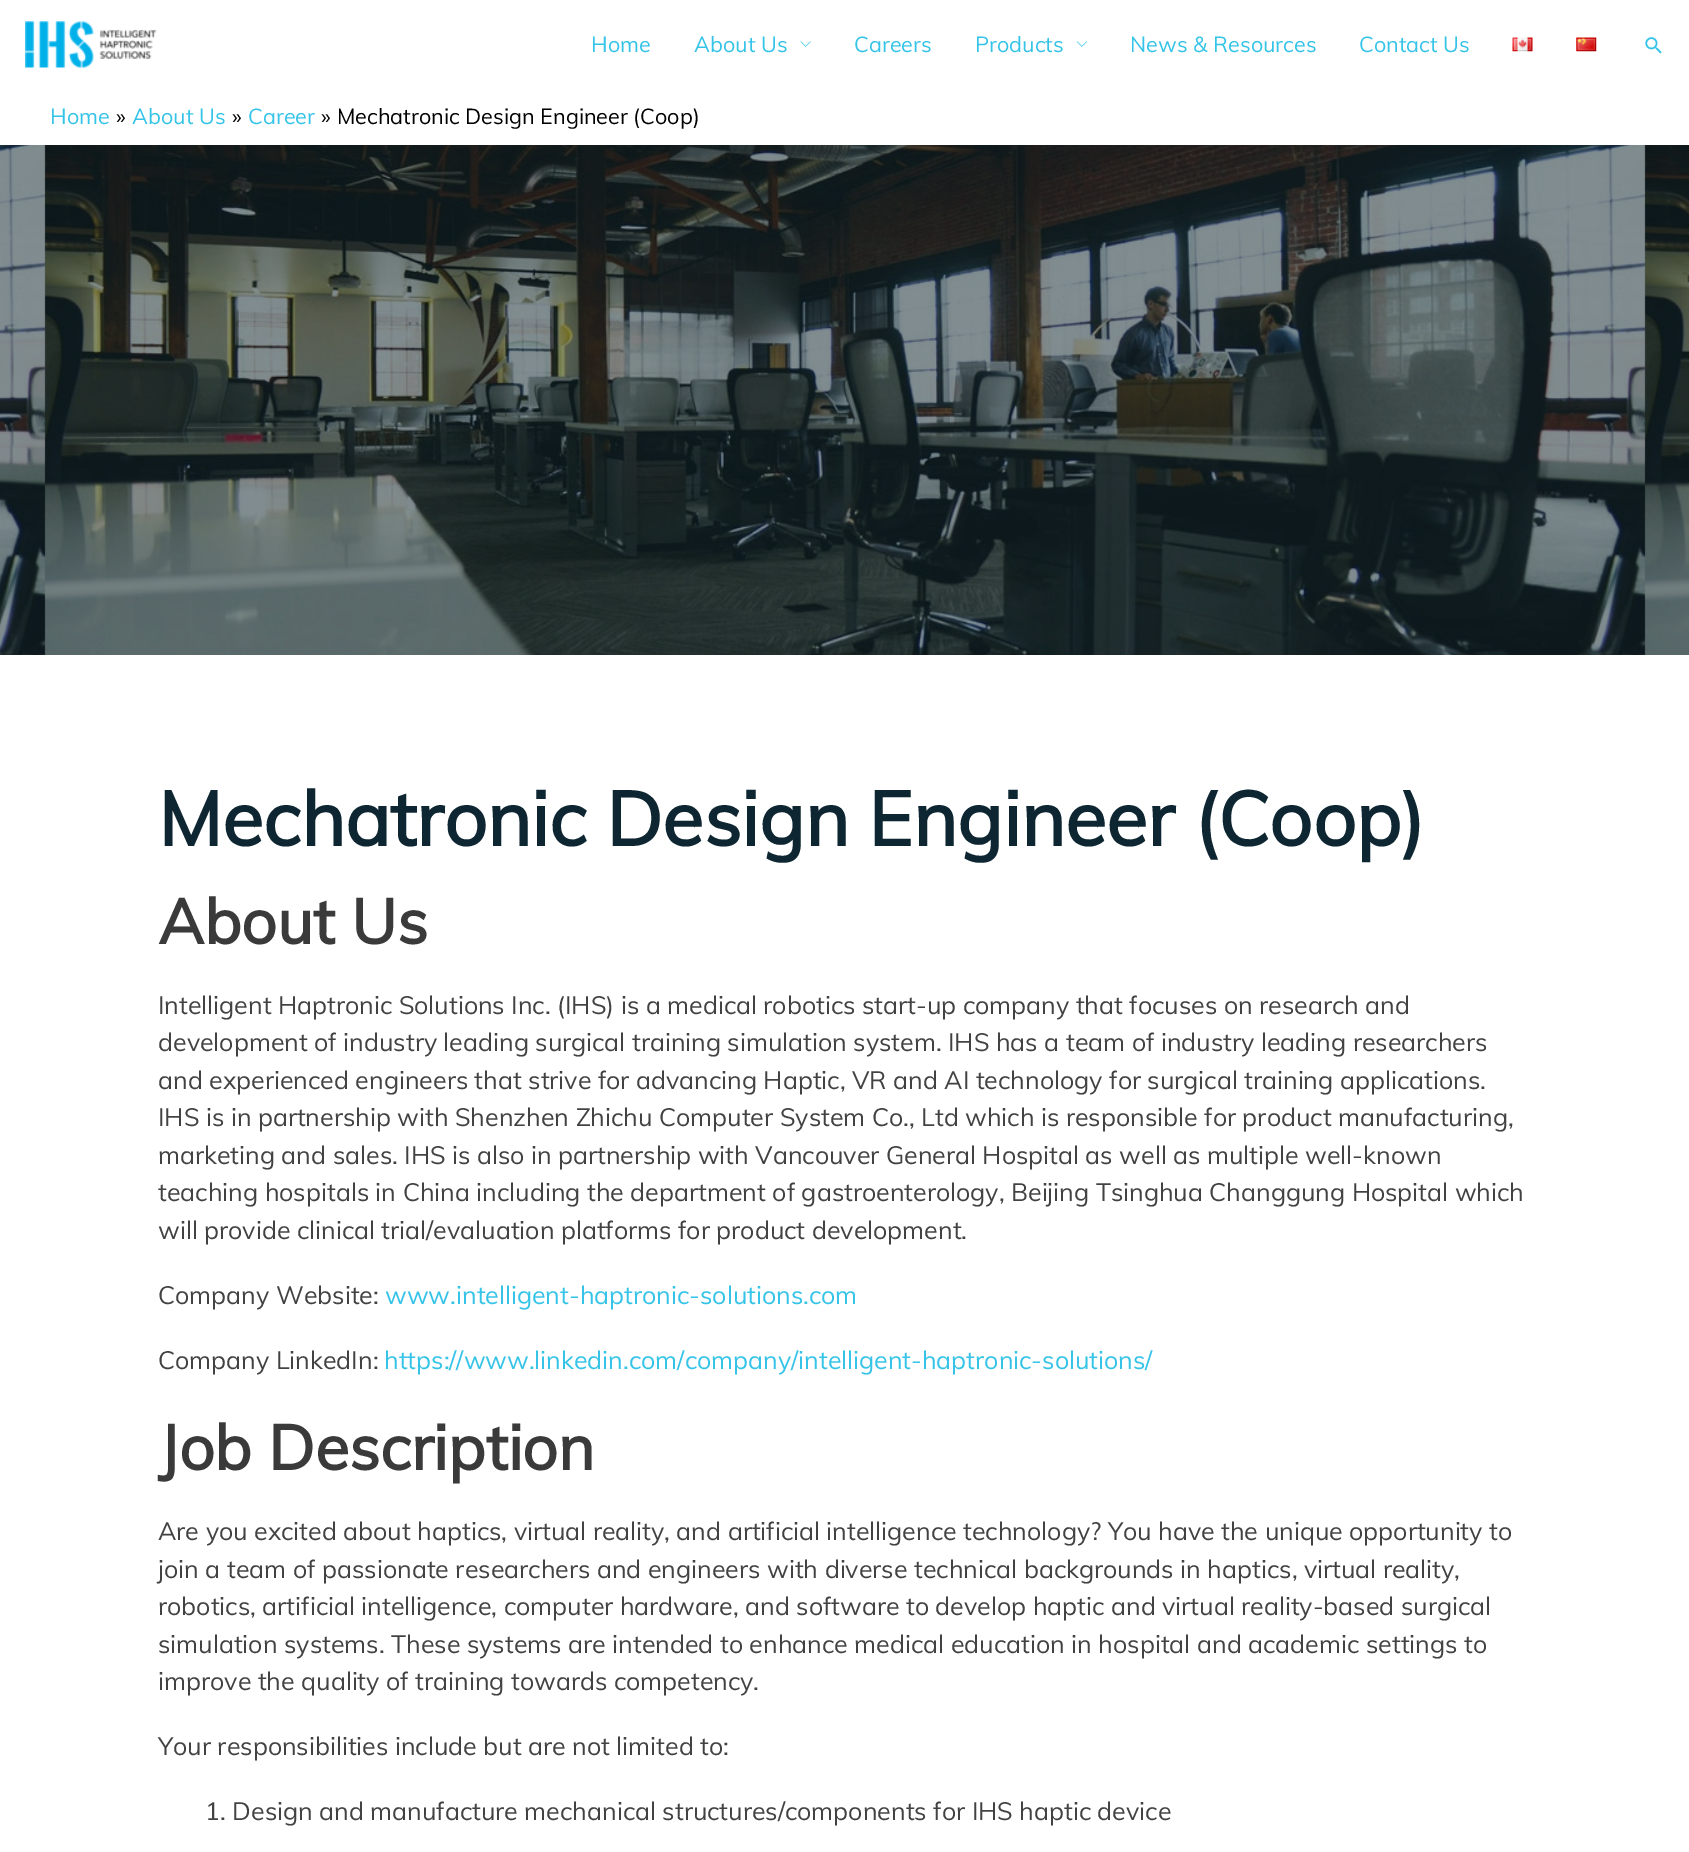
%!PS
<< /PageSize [1689 1852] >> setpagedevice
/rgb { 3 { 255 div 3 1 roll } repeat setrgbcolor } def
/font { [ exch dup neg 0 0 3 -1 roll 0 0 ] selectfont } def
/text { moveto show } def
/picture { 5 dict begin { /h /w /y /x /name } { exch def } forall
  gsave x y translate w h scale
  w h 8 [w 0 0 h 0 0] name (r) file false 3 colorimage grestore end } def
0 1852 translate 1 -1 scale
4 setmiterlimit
255 255 255 rgb
0 0 1689 1852 rectfill
(img_01.rgb) 25 21 132 47 picture
(img_02.rgb) 800 41 11 6 picture
(img_03.rgb) 1076 41 11 6 picture
(img_04.rgb) 1512 37 21 15 picture
(img_05.rgb) 1576 37 21 15 picture
(img_06.rgb) 1645 37 17 17 picture
(img_07.rgb) 0 145 1689 510 picture
/Muli-Regular 21.6 font
53 196 232 rgb
(Home) 591 52 text
(About Us) 694 52 text
(Careers) 854 52 text
(Products) 975 52 text
(News & Resources) 1130 52 text
(Contact Us) 1359 52 text
(Home) 50 124 text
0 0 0 rgb
(») 116 124 text
53 196 232 rgb
(About Us) 132 124 text
0 0 0 rgb
(») 232 124 text
53 196 232 rgb
(Career) 248 124 text
0 0 0 rgb
(») 321 124 text
(Mechatronic Design Engineer \(Coop\)) 337 124 text
/Muli-Bold 75.5 font
13 38 49 rgb
(Mechatronic Design Engineer \(Coop\)) 158 846 text
/Muli-Bold 62.5 font
58 58 58 rgb
(About Us) 158 944 text
/Muli-Regular 25 font
66 66 66 rgb
(Intelligent Haptronic Solutions Inc. \(IHS\) is a medical robotics start-up company that focuses on research and) 158 1014 text
(development of industry leading surgical training simulation system. IHS has a team of industry leading researchers) 158 1051 text
(and experienced engineers that strive for advancing Haptic, VR and AI technology for surgical training applications.) 158 1089 text
(IHS is in partnership with Shenzhen Zhichu Computer System Co., Ltd which is responsible for product manufacturing,) 158 1126 text
(marketing and sales. IHS is also in partnership with Vancouver General Hospital as well as multiple well-known) 158 1164 text
(teaching hospitals in China including the department of gastroenterology, Beijing Tsinghua Changgung Hospital which) 158 1201 text
(will provide clinical trial/evaluation platforms for product development.) 158 1239 text
(Company Website:) 158 1304 text
53 196 232 rgb
(www.intelligent-haptronic-solutions.com) 385 1304 text
66 66 66 rgb
(Company LinkedIn:) 158 1369 text
53 196 232 rgb
(https://www.linkedin.com/company/intelligent-haptronic-solutions/) 384 1369 text
/Muli-Bold 62.5 font
58 58 58 rgb
(Job Description) 158 1470 text
/Muli-Regular 25 font
66 66 66 rgb
(Are you excited about haptics, virtual reality, and artificial intelligence technology? You have the unique opportunity to) 158 1540 text
(join a team of passionate researchers and engineers with diverse technical backgrounds in haptics, virtual reality,) 158 1578 text
(robotics, artificial intelligence, computer hardware, and software to develop haptic and virtual reality-based surgical) 158 1615 text
(simulation systems. These systems are intended to enhance medical education in hospital and academic settings to) 158 1653 text
(improve the quality of training towards competency.) 158 1690 text
(Your responsibilities include but are not limited to:) 158 1755 text
(1. Design and manufacture mechanical structures/components for IHS haptic device) 205 1820 text
showpage
